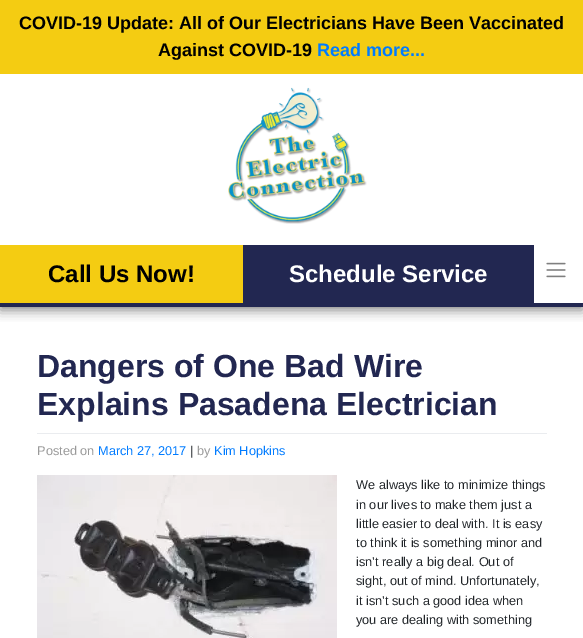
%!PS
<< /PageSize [583 638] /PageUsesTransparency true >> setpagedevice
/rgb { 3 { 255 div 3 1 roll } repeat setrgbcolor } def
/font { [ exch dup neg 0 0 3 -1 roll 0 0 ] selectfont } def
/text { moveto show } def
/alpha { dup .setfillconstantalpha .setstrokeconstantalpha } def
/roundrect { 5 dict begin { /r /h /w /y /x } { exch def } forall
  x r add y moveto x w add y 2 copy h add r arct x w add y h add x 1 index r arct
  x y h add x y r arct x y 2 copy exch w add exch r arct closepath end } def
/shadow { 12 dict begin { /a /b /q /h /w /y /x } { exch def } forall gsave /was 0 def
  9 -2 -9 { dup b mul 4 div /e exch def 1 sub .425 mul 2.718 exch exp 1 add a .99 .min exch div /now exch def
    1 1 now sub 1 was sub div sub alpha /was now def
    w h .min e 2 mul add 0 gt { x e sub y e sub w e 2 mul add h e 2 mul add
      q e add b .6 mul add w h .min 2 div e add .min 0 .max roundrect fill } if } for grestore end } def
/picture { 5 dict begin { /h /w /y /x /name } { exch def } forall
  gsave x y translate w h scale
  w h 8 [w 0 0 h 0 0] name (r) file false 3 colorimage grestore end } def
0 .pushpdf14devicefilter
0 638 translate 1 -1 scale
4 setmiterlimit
255 255 255 rgb
0 0 583 638 rectfill
gsave
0 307 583 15 rectclip
128 128 128 rgb
0 77 583 233 0 6 1 shadow
grestore
244 204 18 rgb
0 0 583 74 rectfill
34 39 81 rgb
0 303 583 4 rectfill
(img_01.rgb) 228 87 139 137 picture
244 204 18 rgb
0 245 243 58 rectfill
34 39 81 rgb
243 245 291 58 rectfill
(img_02.rgb) 546 262 20 16 picture
234 236 239 rgb
37 433 510 1 rectfill
(img_03.rgb) 37 475 300 163 picture
/LiberationSans-Bold 18 font
0 0 0 rgb
(COVID-19 Update: All of Our Electricians Have Been Vaccinated) 19 29 text
(Against COVID-19) 158 56 text
0 123 255 rgb
(Read more...) 317 56 text
/LiberationSans-Bold 24 font
0 0 0 rgb
(Call Us Now!) 48 282 text
255 255 255 rgb
(Schedule Service) 289 282 text
/LiberationSans-Bold 32 font
34 39 81 rgb
(Dangers of One Bad Wire) 37 377 text
(Explains Pasadena Electrician) 37 415 text
/LiberationSans-Regular 12.75 font
154 154 154 rgb
(Posted on) 37 455 text
0 123 255 rgb
(March 27, 2017) 98 455 text
33 37 41 rgb
(|) 190 455 text
154 154 154 rgb
(by) 197 455 text
0 123 255 rgb
(Kim Hopkins) 214 455 text
33 37 41 rgb
(We always like to minimize things) 356 489 text
(in our lives to make them just a) 356 509 text
(little easier to deal with. It is easy) 356 528 text
(to think it is something minor and) 356 547 text
(isn’t really a big deal. Out of) 356 566 text
(sight, out of mind. Unfortunately,) 356 585 text
(it isn’t such a good idea when) 356 605 text
(you are dealing with something) 356 624 text
.poppdf14devicefilter showpage
